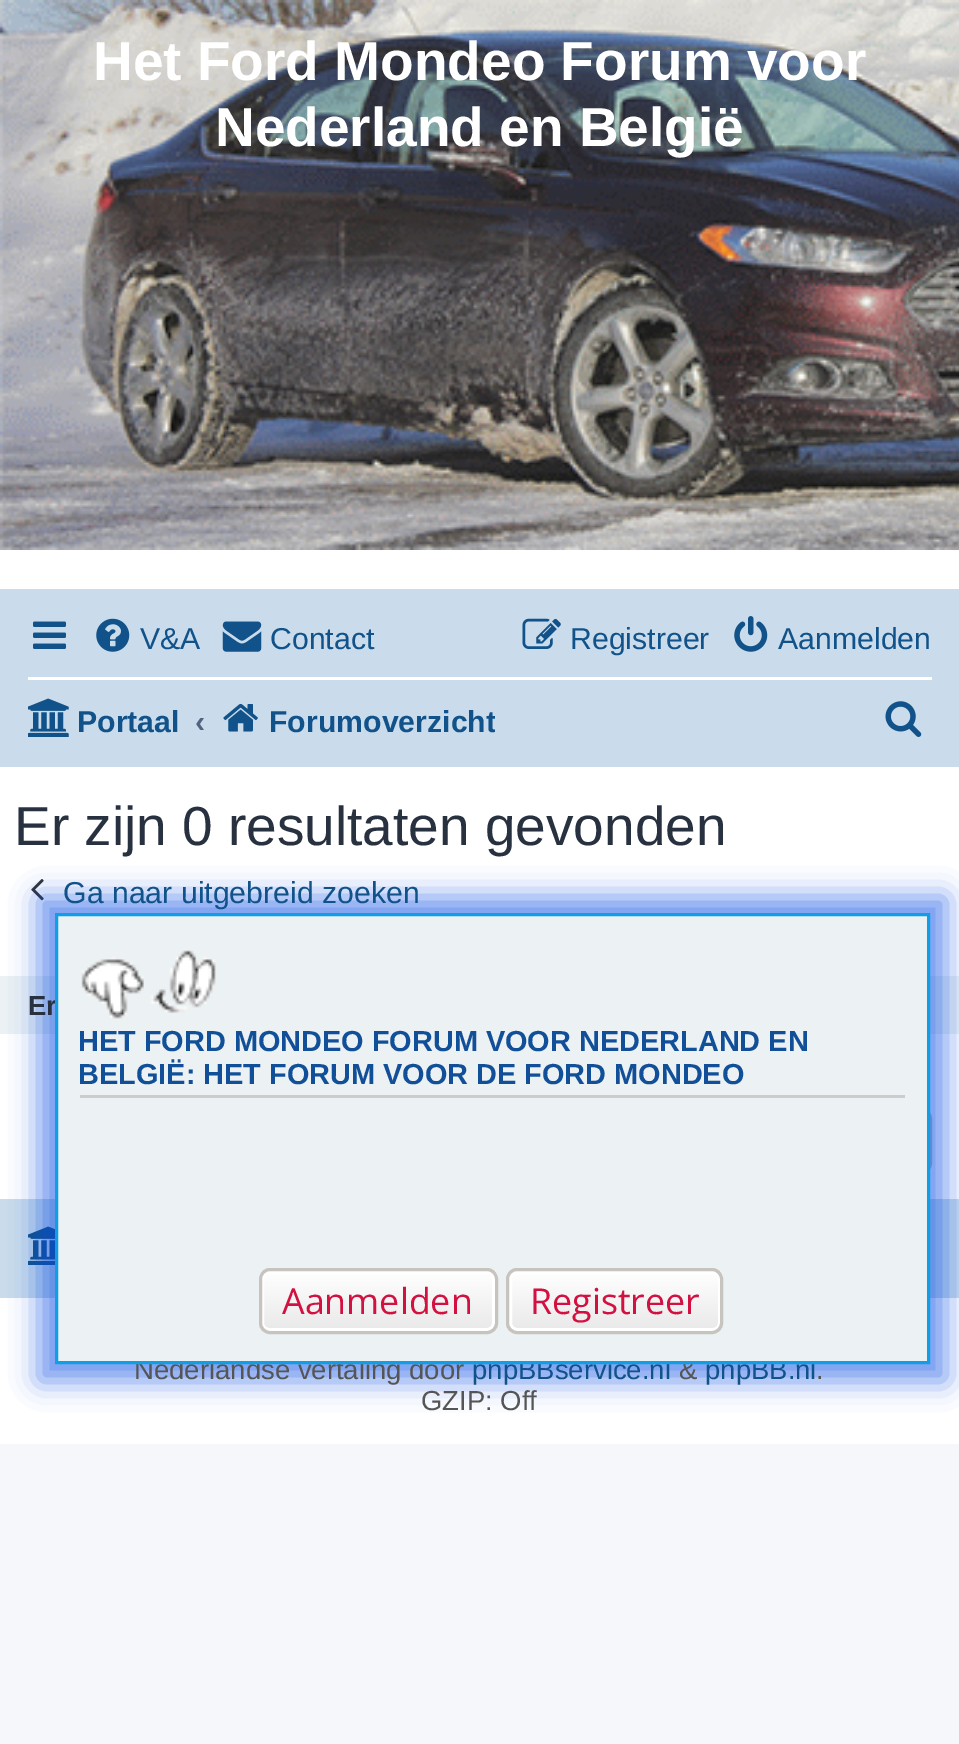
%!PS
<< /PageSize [959 1744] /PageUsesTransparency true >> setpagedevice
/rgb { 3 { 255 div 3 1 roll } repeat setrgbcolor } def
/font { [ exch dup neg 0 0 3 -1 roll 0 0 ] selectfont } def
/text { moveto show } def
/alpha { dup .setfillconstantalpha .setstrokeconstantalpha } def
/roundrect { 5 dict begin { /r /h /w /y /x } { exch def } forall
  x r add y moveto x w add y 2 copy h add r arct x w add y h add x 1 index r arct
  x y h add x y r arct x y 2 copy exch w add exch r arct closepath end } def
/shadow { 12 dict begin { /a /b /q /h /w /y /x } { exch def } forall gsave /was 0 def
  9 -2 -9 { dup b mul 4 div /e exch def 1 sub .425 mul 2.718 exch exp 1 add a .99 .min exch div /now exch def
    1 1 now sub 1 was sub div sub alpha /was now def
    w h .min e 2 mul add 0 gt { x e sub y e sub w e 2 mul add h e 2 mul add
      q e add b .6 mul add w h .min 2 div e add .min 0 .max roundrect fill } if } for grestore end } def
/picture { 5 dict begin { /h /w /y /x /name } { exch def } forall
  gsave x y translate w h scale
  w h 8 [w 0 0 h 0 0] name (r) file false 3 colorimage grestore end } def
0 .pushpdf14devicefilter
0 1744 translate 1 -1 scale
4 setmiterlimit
245 247 250 rgb
0 0 959 1744 rectfill
255 255 255 rgb
0 550 959 894 rectfill
(img_01.rgb) 0 0 959 550 picture
202 220 235 rgb
0 589 959 178 rectfill
(img_02.rgb) 33 621 33 28 picture
(img_03.rgb) 96 618 34 34 picture
(img_04.rgb) 222 621 40 31 picture
(img_05.rgb) 522 618 39 31 picture
(img_06.rgb) 734 616 34 36 picture
255 255 255 rgb
28 677 904 3 rectfill
(img_07.rgb) 28 698 41 39 picture
(img_08.rgb) 223 703 35 29 picture
(img_09.rgb) 885 701 37 36 picture
(img_10.rgb) 31 879 13 22 picture
236 241 243 rgb
0 976 959 58 rectfill
199 195 191 rgb
3 setlinewidth
689.5 1109.5 241 63 9.5 roundrect stroke
202 220 235 rgb
0 1199 959 99 rectfill
(img_12.rgb) 28 1226 27 39 picture
6 74 228 rgb
39 897 907 484 0 14 0.58 shadow
/LiberationSans-Bold 55 font
255 255 255 rgb
(Het Ford Mondeo Forum voor) 93 80 text
(Nederland en België) 215 146 text
/LiberationSans-Regular 30.25 font
16 82 137 rgb
(V&A) 140 649 text
(Contact) 270 649 text
(Registreer) 570 649 text
(Aanmelden) 778 649 text
/LiberationSans-Bold 30.25 font
(Portaal) 77 732 text
83 100 130 rgb
(‹) 195 732 text
gsave
220 688 275 66 rectclip
16 82 137 rgb
(Forumoverzicht) 269 732 text
grestore
/LiberationSans-Regular 55 font
40 49 63 rgb
(Er zijn 0 resultaten gevonden) 14 845 text
/LiberationSans-Regular 30.25 font
16 82 137 rgb
(Ga naar uitgebreid zoeken) 63 903 text
/LiberationSans-Bold 27.5 font
40 49 63 rgb
(Er) 28 1015 text
/LiberationSans-Regular 27.5 font
85 85 85 rgb
(Nederlandse vertaling door) 134 1379 text
16 82 137 rgb
(phpBBservice.nl) 472 1379 text
85 85 85 rgb
(&) 679 1379 text
16 82 137 rgb
(phpBB.nl) 705 1379 text
236 241 243 rgb
56.5 914.5 moveto 872 0 rlineto 0 448 rlineto -872 0 rlineto closepath gsave fill grestore
16 159 229 rgb
stroke
gsave
506 1268 217 66 11 roundrect clip newpath
gsave 506 1271 moveto 217 0 rlineto 0 60 rlineto -217 0 rlineto closepath clip newpath
<< /ShadingType 2 /ColorSpace /DeviceRGB /Coords [615 1271 615 1331] /Extend [true true] /Function << /FunctionType 2 /Domain [0 1] /C0 [1 1 1] /C1 [0.914 0.914 0.914] /N 1 >> >> shfill grestore
grestore
255 255 255 rgb
510.5 1272.5 209 57 6.5 roundrect stroke
199 195 191 rgb
507.5 1269.5 214 63 9.5 roundrect stroke
/OpenSans-Regular 35.75 font
211 17 65 rgb
(Registreer) 530 1314 text
gsave
259 1268 239 66 11 roundrect clip newpath
gsave 259 1271 moveto 239 0 rlineto 0 60 rlineto -239 0 rlineto closepath clip newpath
<< /ShadingType 2 /ColorSpace /DeviceRGB /Coords [378 1271 378 1331] /Extend [true true] /Function << /FunctionType 2 /Domain [0 1] /C0 [1 1 1] /C1 [0.914 0.914 0.914] /N 1 >> >> shfill grestore
grestore
255 255 255 rgb
262.5 1272.5 231 57 6.5 roundrect stroke
199 195 191 rgb
260.5 1269.5 236 63 9.5 roundrect stroke
211 17 65 rgb
(Aanmelden) 282 1314 text
/LiberationSans-Bold 28.9 font
17 80 152 rgb
(BELGIË: HET FORUM VOOR DE FORD MONDEO) 78 1084 text
(HET FORD MONDEO FORUM VOOR NEDERLAND EN) 78 1051 text
(img_11.rgb) 81 950 135 69 picture
204 204 204 rgb
80 1095 825 3 rectfill
/LiberationSans-Regular 27.5 font
85 85 85 rgb
(.) 816 1379 text
(GZIP: Off) 421 1410 text
.poppdf14devicefilter showpage
